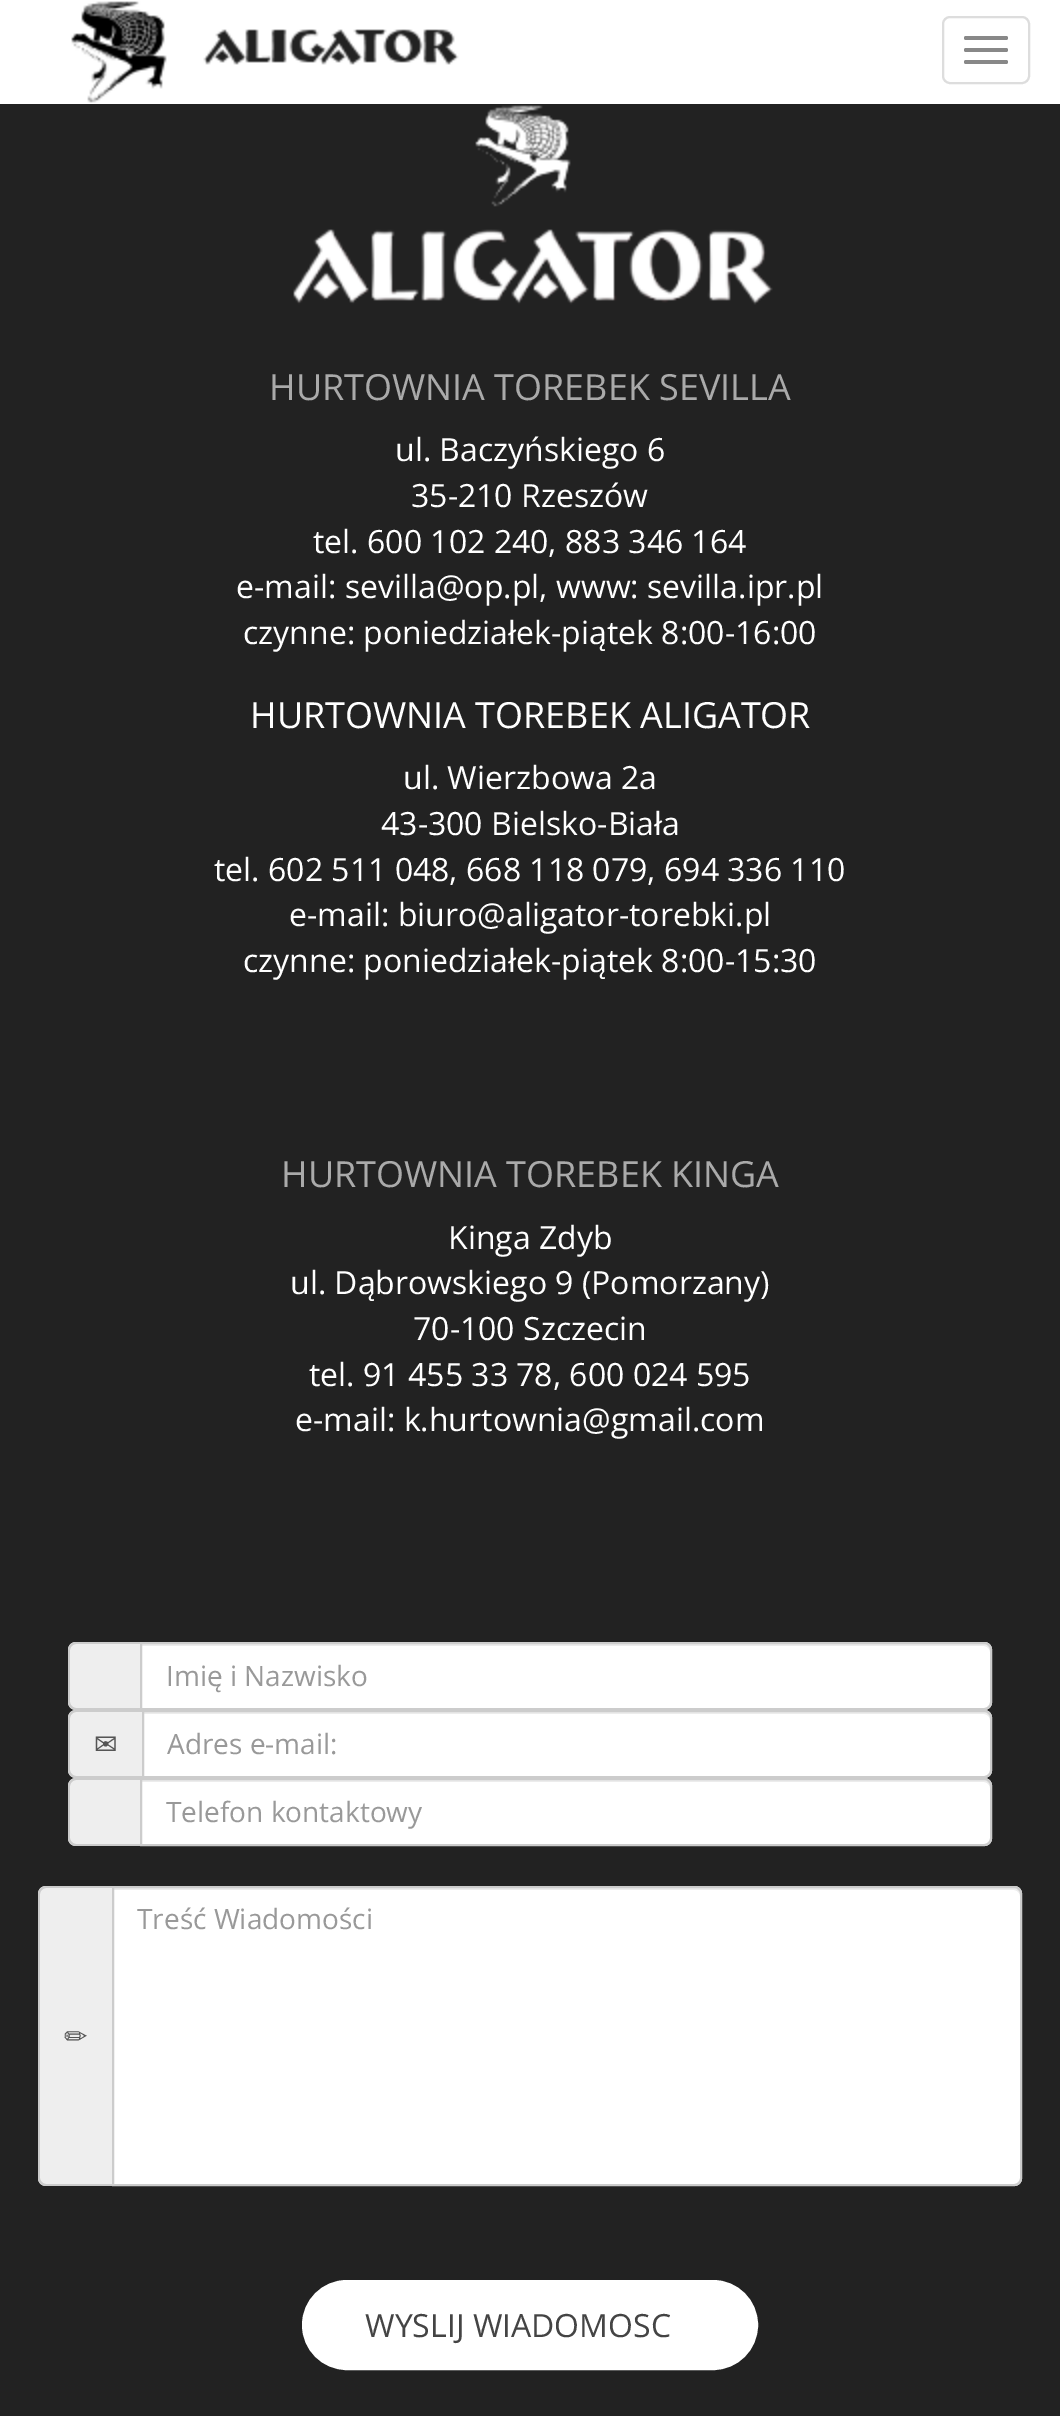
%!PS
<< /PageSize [1060 2416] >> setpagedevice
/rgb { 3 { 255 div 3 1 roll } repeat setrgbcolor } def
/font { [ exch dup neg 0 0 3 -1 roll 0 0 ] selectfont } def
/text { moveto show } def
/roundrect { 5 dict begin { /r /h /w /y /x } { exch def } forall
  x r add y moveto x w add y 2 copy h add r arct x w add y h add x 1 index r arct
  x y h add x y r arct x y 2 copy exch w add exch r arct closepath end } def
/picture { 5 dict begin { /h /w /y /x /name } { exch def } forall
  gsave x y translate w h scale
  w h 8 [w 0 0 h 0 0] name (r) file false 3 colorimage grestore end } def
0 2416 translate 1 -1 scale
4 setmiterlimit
34 34 34 rgb
0 0 1060 2416 rectfill
255 255 255 rgb
0 0 1060 104 rectfill
(img_01.rgb) 71 1 388 102 picture
221 221 221 rgb
2 setlinewidth
943 17 86 66 7 roundrect stroke
136 136 136 rgb
964 36 44 4 2 roundrect fill
964 48 44 4 2 roundrect fill
964 60 44 4 2 roundrect fill
(img_02.rgb) 293 105 480 200 picture
238 238 238 rgb
76 1642 moveto 64 0 rlineto 0 68 rlineto -64 0 rlineto -4.5 0 -8 -3.5 -8 -8 rcurveto 0 -52 rlineto 0 -4.5 3.5 -8 8 -8 rcurveto closepath fill
204 204 204 rgb
76 1642 moveto 64 0 rlineto 0 68 rlineto -64 0 rlineto -4 0 -8 -4 -8 -8 rcurveto 0 -52 rlineto 0 -4 4 -8 8 -8 rcurveto closepath 76 1644 moveto 64 0 rlineto 0 64 rlineto -64 0 rlineto -3 0 -6 -3 -6 -6 rcurveto 0 -52 rlineto 0 -3 3 -6 6 -6 rcurveto closepath eofill
255 255 255 rgb
140 1642 moveto 844 0 rlineto 4.5 0 8 3.5 8 8 rcurveto 0 52 rlineto 0 4.5 -3.5 8 -8 8 rcurveto -844 0 rlineto closepath fill
236 236 236 rgb
142 1646 moveto 842 0 rlineto 3 0 6 3 6 6 rcurveto 0 -4 -1 -8 -6 -8 rcurveto -842 0 rlineto closepath fill
204 204 204 rgb
141 1643 moveto 843 0 rlineto 4 0 7 3 7 7 rcurveto 0 52 rlineto 0 4 -3 7 -7 7 rcurveto -843 0 rlineto closepath stroke
238 238 238 rgb
76 1710 moveto 66 0 rlineto 0 68 rlineto -66 0 rlineto -4.5 0 -8 -3.5 -8 -8 rcurveto 0 -52 rlineto 0 -4.5 3.5 -8 8 -8 rcurveto closepath fill
204 204 204 rgb
76 1710 moveto 66 0 rlineto 0 68 rlineto -66 0 rlineto -4 0 -8 -4 -8 -8 rcurveto 0 -52 rlineto 0 -4 4 -8 8 -8 rcurveto closepath 76 1712 moveto 66 0 rlineto 0 64 rlineto -66 0 rlineto -3 0 -6 -3 -6 -6 rcurveto 0 -52 rlineto 0 -3 3 -6 6 -6 rcurveto closepath eofill
255 255 255 rgb
142 1710 moveto 842 0 rlineto 4.5 0 8 3.5 8 8 rcurveto 0 52 rlineto 0 4.5 -3.5 8 -8 8 rcurveto -842 0 rlineto closepath fill
236 236 236 rgb
144 1714 moveto 840 0 rlineto 3 0 6 3 6 6 rcurveto 0 -4 -1 -8 -6 -8 rcurveto -840 0 rlineto closepath fill
204 204 204 rgb
143 1711 moveto 841 0 rlineto 4 0 7 3 7 7 rcurveto 0 52 rlineto 0 4 -3 7 -7 7 rcurveto -841 0 rlineto closepath stroke
238 238 238 rgb
76 1778 moveto 64 0 rlineto 0 68 rlineto -64 0 rlineto -4.5 0 -8 -3.5 -8 -8 rcurveto 0 -52 rlineto 0 -4.5 3.5 -8 8 -8 rcurveto closepath fill
204 204 204 rgb
76 1778 moveto 64 0 rlineto 0 68 rlineto -64 0 rlineto -4 0 -8 -4 -8 -8 rcurveto 0 -52 rlineto 0 -4 4 -8 8 -8 rcurveto closepath 76 1780 moveto 64 0 rlineto 0 64 rlineto -64 0 rlineto -3 0 -6 -3 -6 -6 rcurveto 0 -52 rlineto 0 -3 3 -6 6 -6 rcurveto closepath eofill
255 255 255 rgb
140 1778 moveto 844 0 rlineto 4.5 0 8 3.5 8 8 rcurveto 0 52 rlineto 0 4.5 -3.5 8 -8 8 rcurveto -844 0 rlineto closepath fill
236 236 236 rgb
142 1782 moveto 842 0 rlineto 3 0 6 3 6 6 rcurveto 0 -4 -1 -8 -6 -8 rcurveto -842 0 rlineto closepath fill
204 204 204 rgb
141 1779 moveto 843 0 rlineto 4 0 7 3 7 7 rcurveto 0 52 rlineto 0 4 -3 7 -7 7 rcurveto -843 0 rlineto closepath stroke
255 255 255 rgb
112 1886 moveto 902 0 rlineto 4.5 0 8 3.5 8 8 rcurveto 0 284 rlineto 0 4.5 -3.5 8 -8 8 rcurveto -902 0 rlineto closepath fill
236 236 236 rgb
114 1890 moveto 900 0 rlineto 3 0 6 3 6 6 rcurveto 0 -4 -1 -8 -6 -8 rcurveto -900 0 rlineto closepath fill
204 204 204 rgb
113 1887 moveto 901 0 rlineto 4 0 7 3 7 7 rcurveto 0 284 rlineto 0 4 -3 7 -7 7 rcurveto -901 0 rlineto closepath stroke
238 238 238 rgb
46 1886 moveto 66 0 rlineto 0 300 rlineto -66 0 rlineto -4.5 0 -8 -3.5 -8 -8 rcurveto 0 -284 rlineto 0 -4.5 3.5 -8 8 -8 rcurveto closepath fill
204 204 204 rgb
46 1886 moveto 66 0 rlineto 0 300 rlineto -66 0 rlineto -4 0 -8 -4 -8 -8 rcurveto 0 -284 rlineto 0 -4 4 -8 8 -8 rcurveto closepath 46 1888 moveto 66 0 rlineto 0 296 rlineto -66 0 rlineto -3 0 -6 -3 -6 -6 rcurveto 0 -284 rlineto 0 -3 3 -6 6 -6 rcurveto closepath eofill
255 255 255 rgb
303 2281 454 88 44 roundrect gsave fill grestore
stroke
/OpenSans-Regular 36 font
170 170 170 rgb
(HURTOWNIA TOREBEK SEVILLA) 269 400 text
/OpenSans-Regular 32 font
255 255 255 rgb
(ul. Baczyńskiego 6) 395 461 text
(35-210 Rzeszów) 411 507 text
(tel. 600 102 240, 883 346 164) 313 553 text
(e-mail: sevilla@op.pl, www: sevilla.ipr.pl) 236 598 text
(czynne: poniedziałek-piątek 8:00-16:00) 243 644 text
/OpenSans-Regular 36 font
(HURTOWNIA TOREBEK ALIGATOR) 250 728 text
/OpenSans-Regular 32 font
(ul. Wierzbowa 2a) 403 789 text
(43-300 Bielsko-Biała) 381 835 text
(tel. 602 511 048, 668 118 079, 694 336 110) 214 881 text
(e-mail: biuro@aligator-torebki.pl) 289 926 text
(czynne: poniedziałek-piątek 8:00-15:30) 243 972 text
/OpenSans-Regular 36 font
170 170 170 rgb
(HURTOWNIA TOREBEK KINGA) 281 1187 text
/OpenSans-Regular 32 font
255 255 255 rgb
(Kinga Zdyb) 448 1249 text
(ul. Dąbrowskiego 9 \(Pomorzany\)) 290 1294 text
(70-100 Szczecin) 413 1340 text
(tel. 91 455 33 78, 600 024 595) 309 1386 text
(e-mail: k.hurtownia@gmail.com) 295 1431 text
/OpenSans-Regular 28 font
153 153 153 rgb
(Imię i Nazwisko) 166 1686 text
/DejaVuSans-Regular 28 font
85 85 85 rgb
(✉) 94 1754 text
/OpenSans-Regular 28 font
153 153 153 rgb
(Adres e-mail:) 167 1754 text
(Telefon kontaktowy) 166 1822 text
(Treść Wiadomości) 137 1929 text
/DejaVuSans-Regular 28 font
85 85 85 rgb
(✏) 64 2046 text
/OpenSans-Regular 32 font
68 68 68 rgb
(WYSLIJ WIADOMOSC) 365 2337 text
showpage
